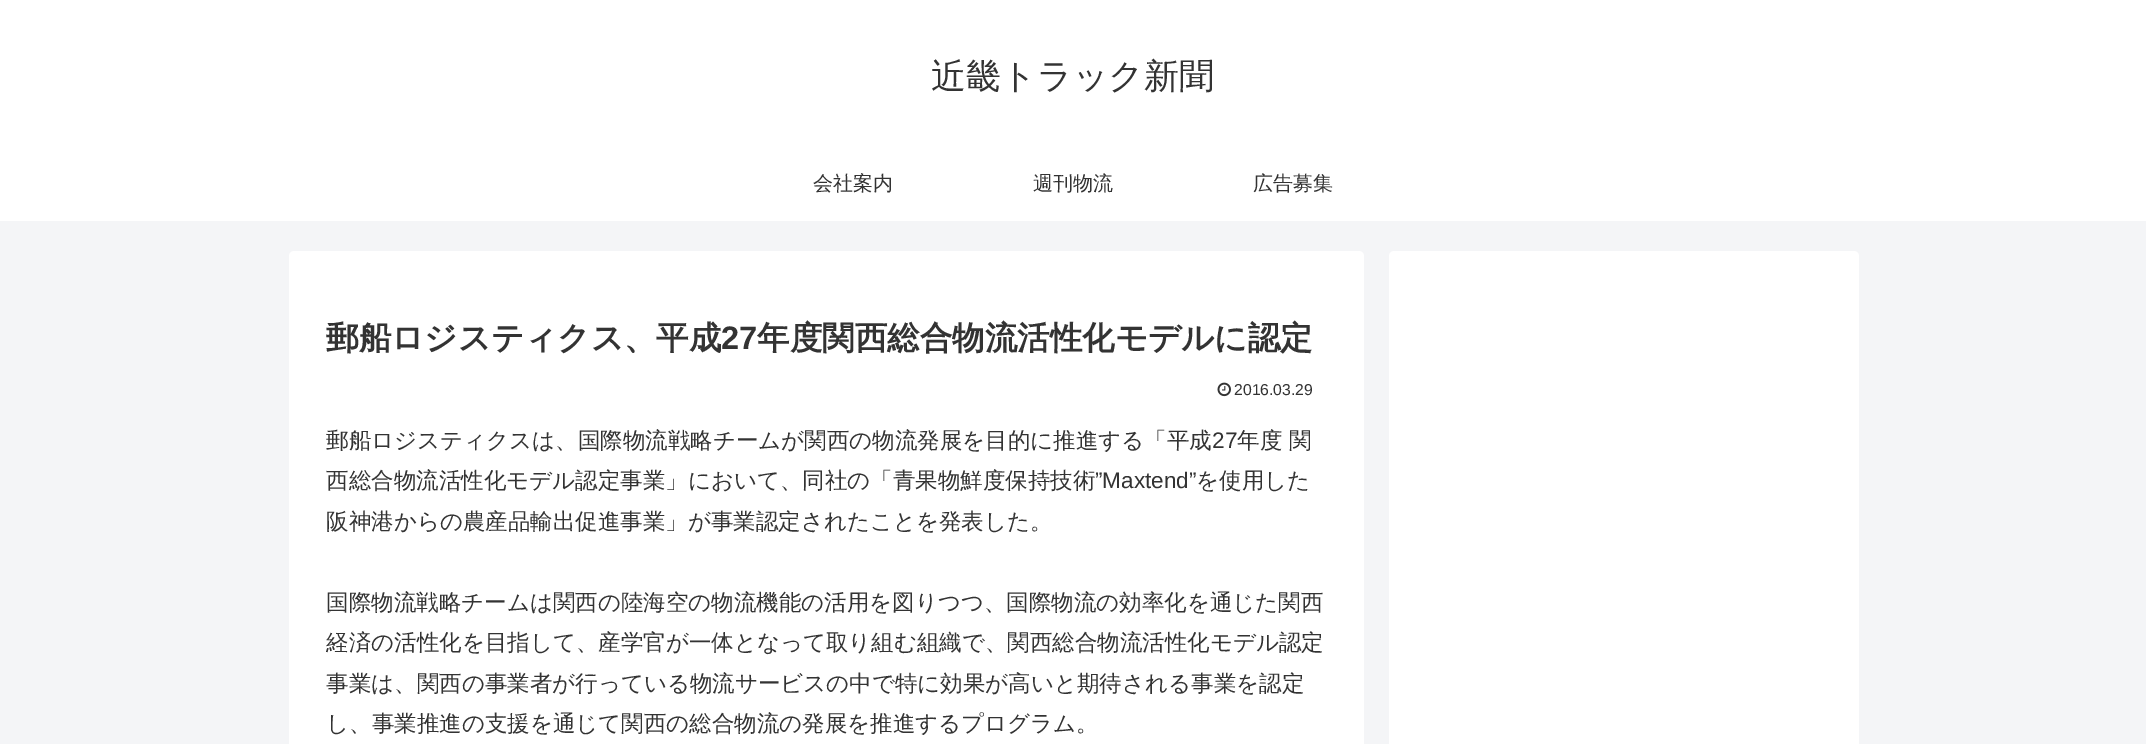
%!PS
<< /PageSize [2146 744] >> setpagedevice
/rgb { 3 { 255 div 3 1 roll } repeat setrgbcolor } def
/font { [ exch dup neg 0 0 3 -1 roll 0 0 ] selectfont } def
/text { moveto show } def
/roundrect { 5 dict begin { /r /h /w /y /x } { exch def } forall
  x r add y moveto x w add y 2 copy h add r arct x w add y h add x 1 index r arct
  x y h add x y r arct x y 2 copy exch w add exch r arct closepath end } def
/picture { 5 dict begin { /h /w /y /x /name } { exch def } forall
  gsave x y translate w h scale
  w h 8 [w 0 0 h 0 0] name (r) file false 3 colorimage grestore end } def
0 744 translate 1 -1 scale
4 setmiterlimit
244 245 247 rgb
0 0 2146 744 rectfill
255 255 255 rgb
0 0 2146 221 rectfill
289 251 1075 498 5 roundrect fill
(img_01.rgb) 1217 382 14 15 picture
1389 251 470 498 5 roundrect fill
/WenQuanYiZenHei-Medium 35 font
51 51 51 rgb
(近畿トラック新聞) 931 88 text
/WenQuanYiZenHei-Medium 20 font
(会社案内) 813 190 text
(週刊物流) 1033 190 text
(広告募集) 1253 190 text
/WenQuanYiZenHei-Bold 32.5 font
(郵船ロジスティクス、平成) 326 349 text
/LiberationSans-Bold 32.5 font
(27) 721 349 text
/WenQuanYiZenHei-Bold 32.5 font
(年度関西総合物流活性化モデルに認定) 757 349 text
/LiberationSans-Regular 15.75 font
(2016.03.29) 1234 395 text
/WenQuanYiZenHei-Medium 22.5 font
(郵船ロジスティクスは、国際物流戦略チームが関西の物流発展を目的に推進する「平成) 326 448 text
/LiberationSans-Regular 22.5 font
(27) 1212 448 text
/WenQuanYiZenHei-Medium 22.5 font
(年度 関) 1237 448 text
(西総合物流活性化モデル認定事業」において、同社の「青果物鮮度保持技術) 326 488 text
/LiberationSans-Regular 22.5 font
(”Maxtend”) 1095 488 text
/WenQuanYiZenHei-Medium 22.5 font
(を使用した) 1196 488 text
(阪神港からの農産品輸出促進事業」が事業認定されたことを発表した。) 326 529 text
(国際物流戦略チームは関西の陸海空の物流機能の活用を図りつつ、国際物流の効率化を通じた関西) 326 610 text
(経済の活性化を目指して、産学官が一体となって取り組む組織で、関西総合物流活性化モデル認定) 326 650 text
(事業は、関西の事業者が行っている物流サービスの中で特に効果が高いと期待される事業を認定) 326 691 text
(し、事業推進の支援を通じて関西の総合物流の発展を推進するプログラム。) 326 731 text
showpage
